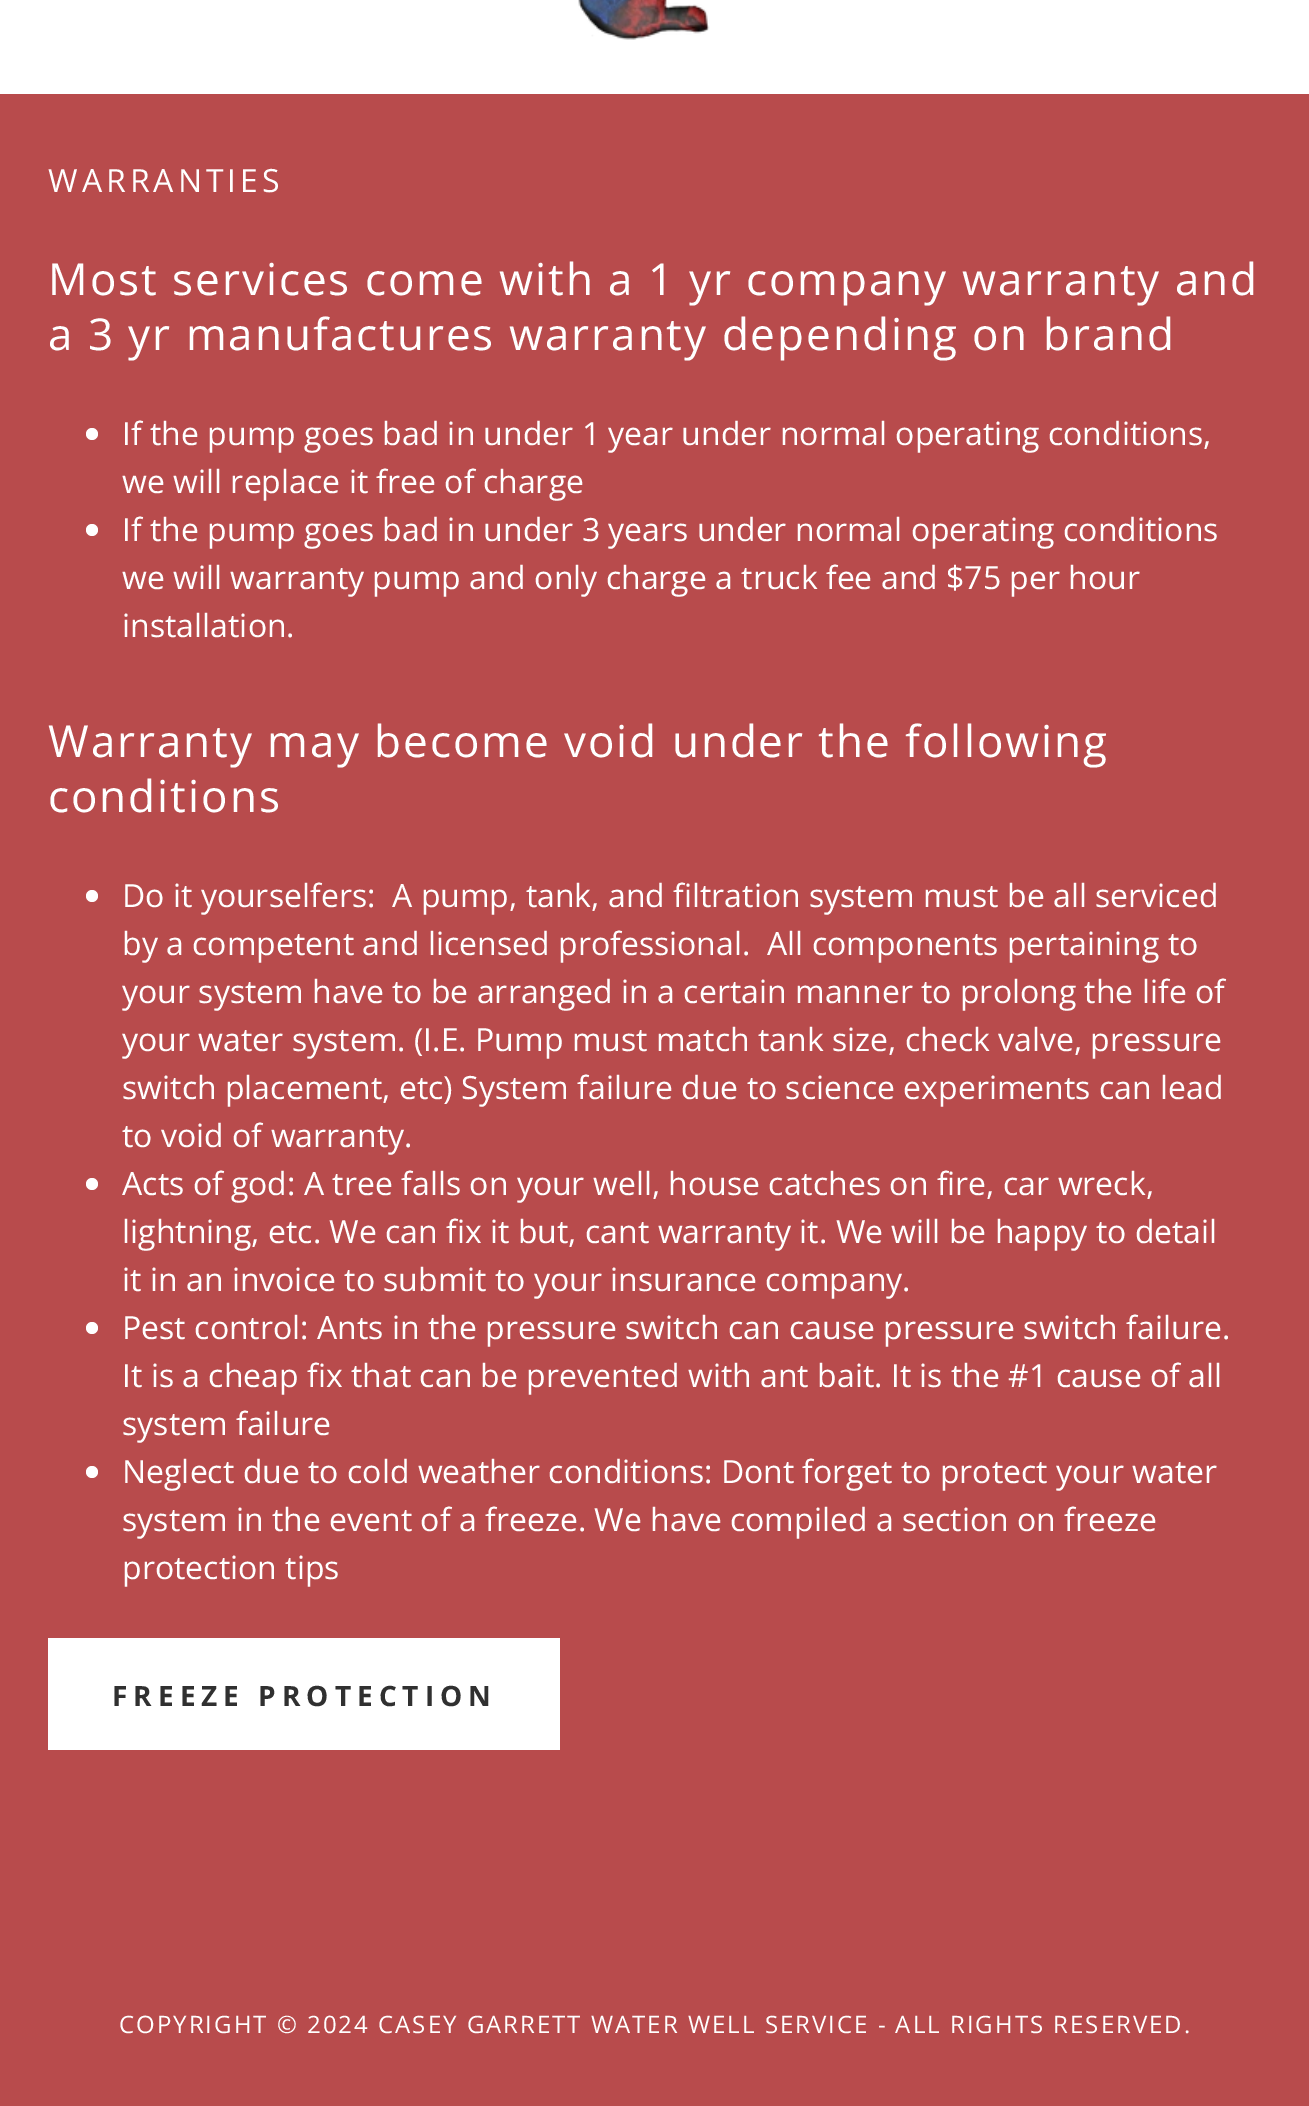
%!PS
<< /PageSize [1309 2106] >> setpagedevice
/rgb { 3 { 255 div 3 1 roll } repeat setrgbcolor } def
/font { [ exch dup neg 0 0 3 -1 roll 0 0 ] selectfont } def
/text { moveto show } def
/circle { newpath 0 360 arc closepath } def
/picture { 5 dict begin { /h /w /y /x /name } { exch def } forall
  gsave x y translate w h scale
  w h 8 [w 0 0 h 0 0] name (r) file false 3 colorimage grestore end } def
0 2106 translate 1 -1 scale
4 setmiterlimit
184 75 76 rgb
0 0 1309 2106 rectfill
255 255 255 rgb
0 0 1309 94 rectfill
(img_01.rgb) 578 0 132 40 picture
92 434 6 circle fill
92 530 6 circle fill
92 896 6 circle fill
92 1184 6 circle fill
92 1328 6 circle fill
92 1472 6 circle fill
48 1638 512 112 rectfill
/OpenSans-Regular 32 font
48 192 moveto 4 0 (WARRANTIES) ashow
/OpenSans-Regular 44 font
48 295 moveto 1.98 0 (Most services come with a 1 yr company warranty and) ashow
48 350 moveto 1.98 0 (a 3 yr manufactures warranty depending on brand) ashow
/OpenSans-Regular 32 font
(If the pump goes bad in under 1 year under normal operating conditions,) 122 445 text
(we will replace it free of charge) 122 493 text
(If the pump goes bad in under 3 years under normal operating conditions) 122 541 text
(we will warranty pump and only charge a truck fee and $75 per hour) 122 589 text
(installation.) 122 637 text
/OpenSans-Regular 44 font
48 757 moveto 1.98 0 (Warranty may become void under the following) ashow
48 812 moveto 1.98 0 (conditions) ashow
/OpenSans-Regular 32 font
(Do it yourselfers:  A pump, tank, and filtration system must be all serviced) 122 907 text
(by a competent and licensed professional.  All components pertaining to) 122 955 text
(your system have to be arranged in a certain manner to prolong the life of) 122 1003 text
(your water system. \(I.E. Pump must match tank size, check valve, pressure) 122 1051 text
(switch placement, etc\) System failure due to science experiments can lead) 122 1099 text
(to void of warranty.) 122 1147 text
(Acts of god: A tree falls on your well, house catches on fire, car wreck,) 122 1195 text
(lightning, etc. We can fix it but, cant warranty it. We will be happy to detail) 122 1243 text
(it in an invoice to submit to your insurance company.) 122 1291 text
(Pest control: Ants in the pressure switch can cause pressure switch failure.) 122 1339 text
(It is a cheap fix that can be prevented with ant bait. It is the #1 cause of all) 122 1387 text
(system failure) 122 1435 text
(Neglect due to cold weather conditions: Dont forget to protect your water) 122 1483 text
(system in the event of a freeze. We have compiled a section on freeze) 122 1531 text
(protection tips) 122 1579 text
/OpenSans-Bold 28 font
48 48 48 rgb
112 1706 moveto 6 0 (FREEZE PROTECTION) ashow
/OpenSans-Regular 24 font
255 255 255 rgb
119 2033 moveto 2 0 (COPYRIGHT © 2024 CASEY GARRETT WATER WELL SERVICE - ALL RIGHTS RESERVED.) ashow
showpage
